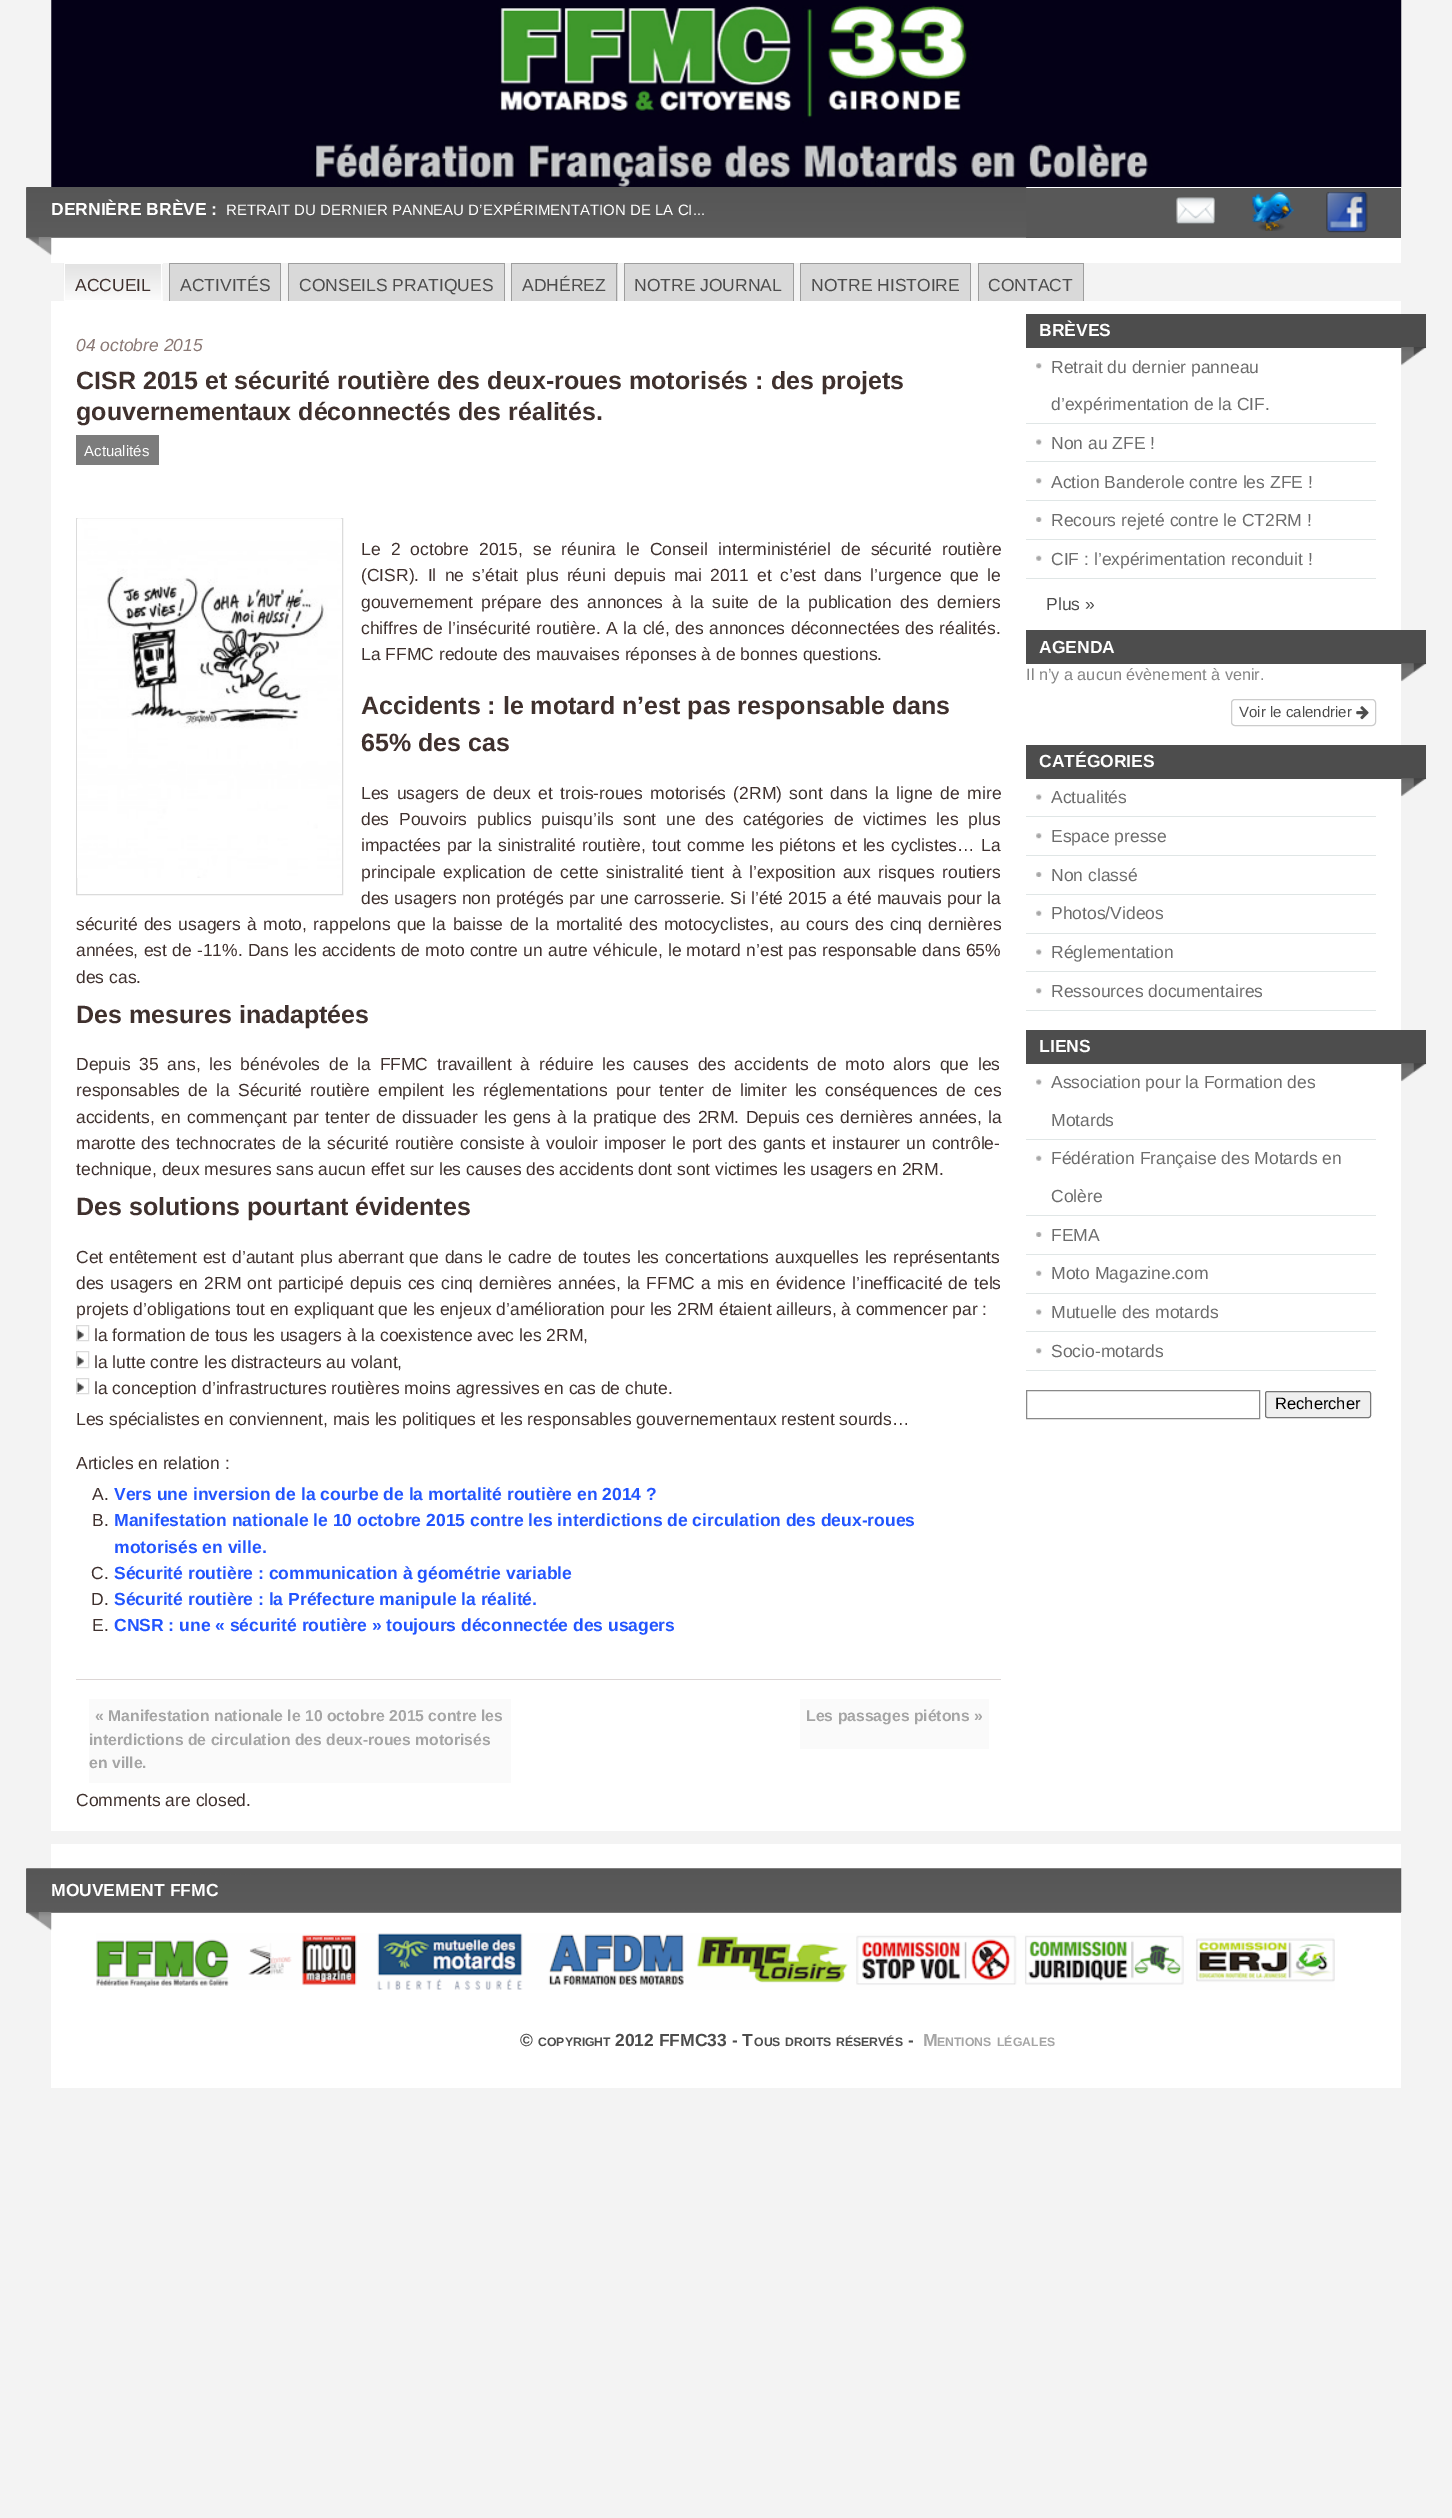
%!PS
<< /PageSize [1452 2518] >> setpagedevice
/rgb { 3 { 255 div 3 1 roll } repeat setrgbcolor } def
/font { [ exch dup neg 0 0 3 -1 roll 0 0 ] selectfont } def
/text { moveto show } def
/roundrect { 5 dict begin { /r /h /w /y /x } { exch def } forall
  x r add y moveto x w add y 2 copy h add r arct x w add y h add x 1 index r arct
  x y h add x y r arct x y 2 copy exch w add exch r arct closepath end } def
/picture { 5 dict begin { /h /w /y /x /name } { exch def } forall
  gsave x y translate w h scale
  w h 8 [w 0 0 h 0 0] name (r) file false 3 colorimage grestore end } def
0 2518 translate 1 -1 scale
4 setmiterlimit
243 243 243 rgb
0 0 1452 2518 rectfill
255 255 255 rgb
51 0 1350 263 rectfill
(img_01.rgb) 51 0 1351 187 picture
124 124 124 rgb
26 188 1000 50 rectfill
88 88 88 rgb
1026 188 375 50 rectfill
(img_02.rgb) 26 187 1001 50 picture
(img_03.rgb) 26 237 26 19 picture
(img_04.rgb) 1176 197 39 27 picture
(img_05.rgb) 1252 192 42 39 picture
(img_06.rgb) 1326 192 42 41 picture
255 255 255 rgb
65 264 98 37 rectfill
(img_07.rgb) 63 263 100 37 picture
64 263 99 1 rectfill
161 263 1 38 rectfill
64 263 1 38 rectfill
217 217 217 rgb
170 264 110 37 rectfill
158 158 158 rgb
169 263 112 1 rectfill
280 263 1 38 rectfill
169 263 1 38 rectfill
217 217 217 rgb
289 264 215 37 rectfill
158 158 158 rgb
288 263 217 1 rectfill
504 263 1 38 rectfill
288 263 1 38 rectfill
217 217 217 rgb
512 264 106 37 rectfill
158 158 158 rgb
511 263 107 1 rectfill
616 263 1 38 rectfill
511 263 1 38 rectfill
217 217 217 rgb
625 264 168 37 rectfill
158 158 158 rgb
624 263 170 1 rectfill
793 263 1 38 rectfill
624 263 1 38 rectfill
217 217 217 rgb
801 264 169 37 rectfill
158 158 158 rgb
800 263 171 1 rectfill
970 263 1 38 rectfill
800 263 1 38 rectfill
217 217 217 rgb
979 264 104 37 rectfill
158 158 158 rgb
978 263 106 1 rectfill
1083 263 1 38 rectfill
978 263 1 38 rectfill
255 255 255 rgb
51 301 1350 1530 rectfill
220 214 213 rgb
76 1679 925 1 rectfill
124 124 124 rgb
76 435 83 30 rectfill
219 219 219 rgb
76.5 518.5 266 376 rectstroke
(img_08.rgb) 77 518 265 360 picture
76.5 1325.5 12 15 rectstroke
(img_09.rgb) 77 1329 7 11 picture
76.5 1351.5 12 16 rectstroke
(img_10.rgb) 77 1355 7 11 picture
76.5 1378.5 12 15 rectstroke
(img_11.rgb) 77 1382 7 10 picture
250 250 250 rgb
89 1699 422 84 rectfill
800 1699 189 50 rectfill
77 77 77 rgb
1026 314 400 34 rectfill
(img_12.rgb) 1401 347 26 19 picture
(img_13.rgb) 1036 363 6 6 picture
224 230 230 rgb
1026 423 350 1 rectfill
(img_14.rgb) 1036 439 6 6 picture
1026 461 350 1 rectfill
(img_13.rgb) 1036 478 6 6 picture
1026 500 350 1 rectfill
(img_15.rgb) 1036 517 6 5 picture
1026 539 350 1 rectfill
(img_16.rgb) 1036 555 6 6 picture
1026 578 350 1 rectfill
77 77 77 rgb
1026 630 400 34 rectfill
(img_17.rgb) 1401 663 26 19 picture
204 204 204 rgb
1231.5 699.5 144 26 3.5 roundrect stroke
(img_18.rgb) 1356 706 13 14 picture
77 77 77 rgb
1026 745 400 34 rectfill
(img_17.rgb) 1401 778 26 19 picture
(img_14.rgb) 1036 794 6 6 picture
224 230 230 rgb
1026 816 350 1 rectfill
(img_13.rgb) 1036 833 6 6 picture
1026 855 350 1 rectfill
(img_15.rgb) 1036 872 6 5 picture
1026 894 350 1 rectfill
(img_16.rgb) 1036 910 6 6 picture
1026 933 350 1 rectfill
(img_14.rgb) 1036 949 6 6 picture
1026 971 350 1 rectfill
(img_13.rgb) 1036 988 6 6 picture
1026 1010 350 1 rectfill
77 77 77 rgb
1026 1030 400 34 rectfill
(img_17.rgb) 1401 1063 26 19 picture
(img_14.rgb) 1036 1079 6 6 picture
224 230 230 rgb
1026 1139 350 1 rectfill
(img_16.rgb) 1036 1155 6 6 picture
1026 1215 350 1 rectfill
(img_15.rgb) 1036 1232 6 5 picture
1026 1254 350 1 rectfill
(img_16.rgb) 1036 1270 6 6 picture
1026 1293 350 1 rectfill
(img_14.rgb) 1036 1309 6 6 picture
1026 1331 350 1 rectfill
(img_13.rgb) 1036 1348 6 6 picture
1026 1370 350 1 rectfill
137 137 137 rgb
1026.5 1390.5 233 28 rectstroke
239 239 239 rgb
1265.5 1391.5 105 26 2 roundrect gsave fill grestore
118 118 118 rgb
stroke
255 255 255 rgb
51 1844 1350 244 rectfill
124 124 124 rgb
26 1869 1375 44 rectfill
(img_19.rgb) 26 1868 1376 44 picture
(img_03.rgb) 26 1912 26 19 picture
(img_20.rgb) 96 1933 1239 57 picture
/LiberationSans-Bold 17.5 font
255 255 255 rgb
(DERNIÈRE BRÈVE :) 51 215 text
/LiberationSans-Regular 15 font
(RETRAIT DU DERNIER PANNEAU D’EXPÉRIMENTATION DE LA CI...) 226 215 text
/LiberationSans-Regular 17.5 font
63 49 46 rgb
(ACCUEIL) 75 291 text
77 77 77 rgb
(ACTIVITÉS) 180 291 text
(CONSEILS PRATIQUES) 299 291 text
(ADHÉREZ) 522 291 text
(NOTRE JOURNAL) 634 291 text
(NOTRE HISTOIRE) 811 291 text
(CONTACT) 988 291 text
/LiberationSans-Italic 17.5 font
138 121 117 rgb
(04 octobre 2015) 76 351 text
/LiberationSans-Bold 25 font
63 49 46 rgb
(CISR 2015 et sécurité routière des deux-roues motorisés : des projets) 76 389 text
(gouvernementaux déconnectés des réalités.) 76 420 text
/LiberationSans-Regular 15 font
255 255 255 rgb
(Actualités) 84 456 text
/LiberationSans-Regular 17.5 font
63 49 46 rgb
361 555 moveto 5.25 0 32 (Le 2 octobre 2015, se réunira le Conseil interministériel de sécurité routière) widthshow
361 581 moveto 3.4 0 32 (\(CISR\). Il ne s’était plus réuni depuis mai 2011 et c’est dans l’urgence que le) widthshow
361 608 moveto 3.75 0 32 (gouvernement prépare des annonces à la suite de la publication des derniers) widthshow
361 634 moveto 0.75 0 32 (chiffres de l’insécurité routière. A la clé, des annonces déconnectées des réalités.) widthshow
(La FFMC redoute des mauvaises réponses à de bonnes questions.) 361 660 text
/LiberationSans-Bold 25 font
(Accidents : le motard n’est pas responsable dans) 361 714 text
(65% des cas) 361 751 text
/LiberationSans-Regular 17.5 font
361 799 moveto 2.5 0 32 (Les usagers de deux et trois-roues motorisés \(2RM\) sont dans la ligne de mire) widthshow
361 825 moveto 5 0 32 (des Pouvoirs publics puisqu’ils sont une des catégories de victimes les plus) widthshow
361 851 moveto 1.25 0 32 (impactées par la sinistralité routière, tout comme les piétons et les cyclistes… La) widthshow
361 878 moveto 2.6 0 32 (principale explication de cette sinistralité tient à l’exposition aux risques routiers) widthshow
361 904 moveto 0.25 0 32 (des usagers non protégés par une carrosserie. Si l’été 2015 a été mauvais pour la) widthshow
76 930 moveto 1.6 0 32 (sécurité des usagers à moto, rappelons que la baisse de la mortalité des motocyclistes, au cours des cinq dernières) widthshow
76 956 moveto 0.4 0 32 (années, est de -11%. Dans les accidents de moto contre un autre véhicule, le motard n’est pas responsable dans 65%) widthshow
(des cas.) 76 983 text
/LiberationSans-Bold 25 font
(Des mesures inadaptées) 76 1023 text
/LiberationSans-Regular 17.5 font
76 1070 moveto 3.9 0 32 (Depuis 35 ans, les bénévoles de la FFMC travaillent à réduire les causes des accidents de moto alors que les) widthshow
76 1096 moveto 3.4 0 32 (responsables de la Sécurité routière empilent les réglementations pour tenter de limiter les conséquences de ces) widthshow
76 1123 moveto 1.5 0 32 (accidents, en commençant par tenter de dissuader les gens à la pratique des 2RM. Depuis ces dernières années, la) widthshow
76 1149 moveto 1.25 0 32 (marotte des technocrates de la sécurité routière consiste à vouloir imposer le port des gants et instaurer un contrôle-) widthshow
(technique, deux mesures sans aucun effet sur les causes des accidents dont sont victimes les usagers en 2RM.) 76 1175 text
/LiberationSans-Bold 25 font
(Des solutions pourtant évidentes) 76 1215 text
/LiberationSans-Regular 17.5 font
76 1263 moveto 1.1 0 32 (Cet entêtement est d’autant plus aberrant que dans le cadre de toutes les concertations auxquelles les représentants) widthshow
76 1289 moveto 1.25 0 32 (des usagers en 2RM ont participé depuis ces cinq dernières années, la FFMC a mis en évidence l’inefficacité de tels) widthshow
(projets d’obligations tout en expliquant que les enjeux d’amélioration pour les 2RM étaient ailleurs, à commencer par :) 76 1315 text
(la formation de tous les usagers à la coexistence avec les 2RM,) 94 1341 text
(la lutte contre les distracteurs au volant,) 94 1368 text
(la conception d’infrastructures routières moins agressives en cas de chute.) 94 1394 text
(Les spécialistes en conviennent, mais les politiques et les responsables gouvernementaux restent sourds…) 76 1425 text
(Articles en relation :) 76 1469 text
(A.) 92 1500 text
/LiberationSans-Bold 17.5 font
34 85 255 rgb
(Vers une inversion de la courbe de la mortalité routière en 2014 ?) 114 1500 text
/LiberationSans-Regular 17.5 font
63 49 46 rgb
(B.) 92 1526 text
/LiberationSans-Bold 17.5 font
34 85 255 rgb
(Manifestation nationale le 10 octobre 2015 contre les interdictions de circulation des deux-roues) 114 1526 text
(motorisés en ville.) 114 1553 text
/LiberationSans-Regular 17.5 font
63 49 46 rgb
(C.) 91 1579 text
/LiberationSans-Bold 17.5 font
34 85 255 rgb
(Sécurité routière : communication à géométrie variable) 114 1579 text
/LiberationSans-Regular 17.5 font
63 49 46 rgb
(D.) 91 1605 text
/LiberationSans-Bold 17.5 font
34 85 255 rgb
(Sécurité routière : la Préfecture manipule la réalité.) 114 1605 text
/LiberationSans-Regular 17.5 font
63 49 46 rgb
(E.) 92 1631 text
/LiberationSans-Bold 17.5 font
34 85 255 rgb
(CNSR : une « sécurité routière » toujours déconnectée des usagers) 114 1631 text
/LiberationSans-Bold 15.75 font
165 165 165 rgb
(« Manifestation nationale le 10 octobre 2015 contre les) 95 1721 text
(interdictions de circulation des deux-roues motorisés) 89 1745 text
(en ville.) 89 1768 text
(Les passages piétons ») 806 1721 text
/LiberationSans-Regular 17.5 font
63 49 46 rgb
(Comments are closed.) 76 1806 text
/LiberationSans-Bold 17.5 font
255 255 255 rgb
(BRÈVES) 1039 336 text
/LiberationSans-Regular 17.5 font
108 108 108 rgb
(Retrait du dernier panneau) 1051 373 text
(d’expérimentation de la CIF.) 1051 410 text
(Non au ZFE !) 1051 449 text
(Action Banderole contre les ZFE !) 1051 488 text
(Recours rejeté contre le CT2RM !) 1051 526 text
(CIF : l’expérimentation reconduit !) 1051 565 text
77 77 77 rgb
(Plus ») 1046 610 text
/LiberationSans-Bold 17.5 font
255 255 255 rgb
(AGENDA) 1039 653 text
/LiberationSans-Regular 16.25 font
133 133 133 rgb
(Il n’y a aucun évènement à venir.) 1026 680 text
/LiberationSans-Regular 15 font
77 77 77 rgb
(Voir le calendrier) 1239 717 text
/LiberationSans-Bold 17.5 font
255 255 255 rgb
(CATÉGORIES) 1039 767 text
/LiberationSans-Regular 17.5 font
108 108 108 rgb
(Actualités) 1051 803 text
(Espace presse) 1051 842 text
(Non classé) 1051 881 text
(Photos/Videos) 1051 919 text
(Réglementation) 1051 958 text
(Ressources documentaires) 1051 997 text
/LiberationSans-Bold 17.5 font
255 255 255 rgb
(LIENS) 1039 1052 text
/LiberationSans-Regular 17.5 font
108 108 108 rgb
(Association pour la Formation des) 1051 1088 text
(Motards) 1051 1126 text
(Fédération Française des Motards en) 1051 1164 text
(Colère) 1051 1202 text
(FEMA) 1051 1241 text
(Moto Magazine.com) 1051 1279 text
(Mutuelle des motards) 1051 1318 text
(Socio-motards) 1051 1357 text
/LiberationSans-Regular 16.5 font
0 0 0 rgb
(Rechercher) 1275 1409 text
/LiberationSans-Bold 17.5 font
255 255 255 rgb
(MOUVEMENT FFMC) 51 1896 text
77 77 77 rgb
(©) 520 2046 text
/LiberationSans-Bold 12.25 font
(COPYRIGHT) 538 2046 text
/LiberationSans-Bold 17.5 font
(2012 FFMC33 - T) 615 2046 text
/LiberationSans-Bold 12.25 font
(OUS) 754 2046 text
(DROITS) 785 2046 text
(RÉSERVÉS) 836 2046 text
/LiberationSans-Bold 17.5 font
(-) 908 2046 text
165 165 165 rgb
(M) 923 2046 text
/LiberationSans-Bold 12.25 font
(ENTIONS) 937 2046 text
(LÉGALES) 997 2046 text
showpage
